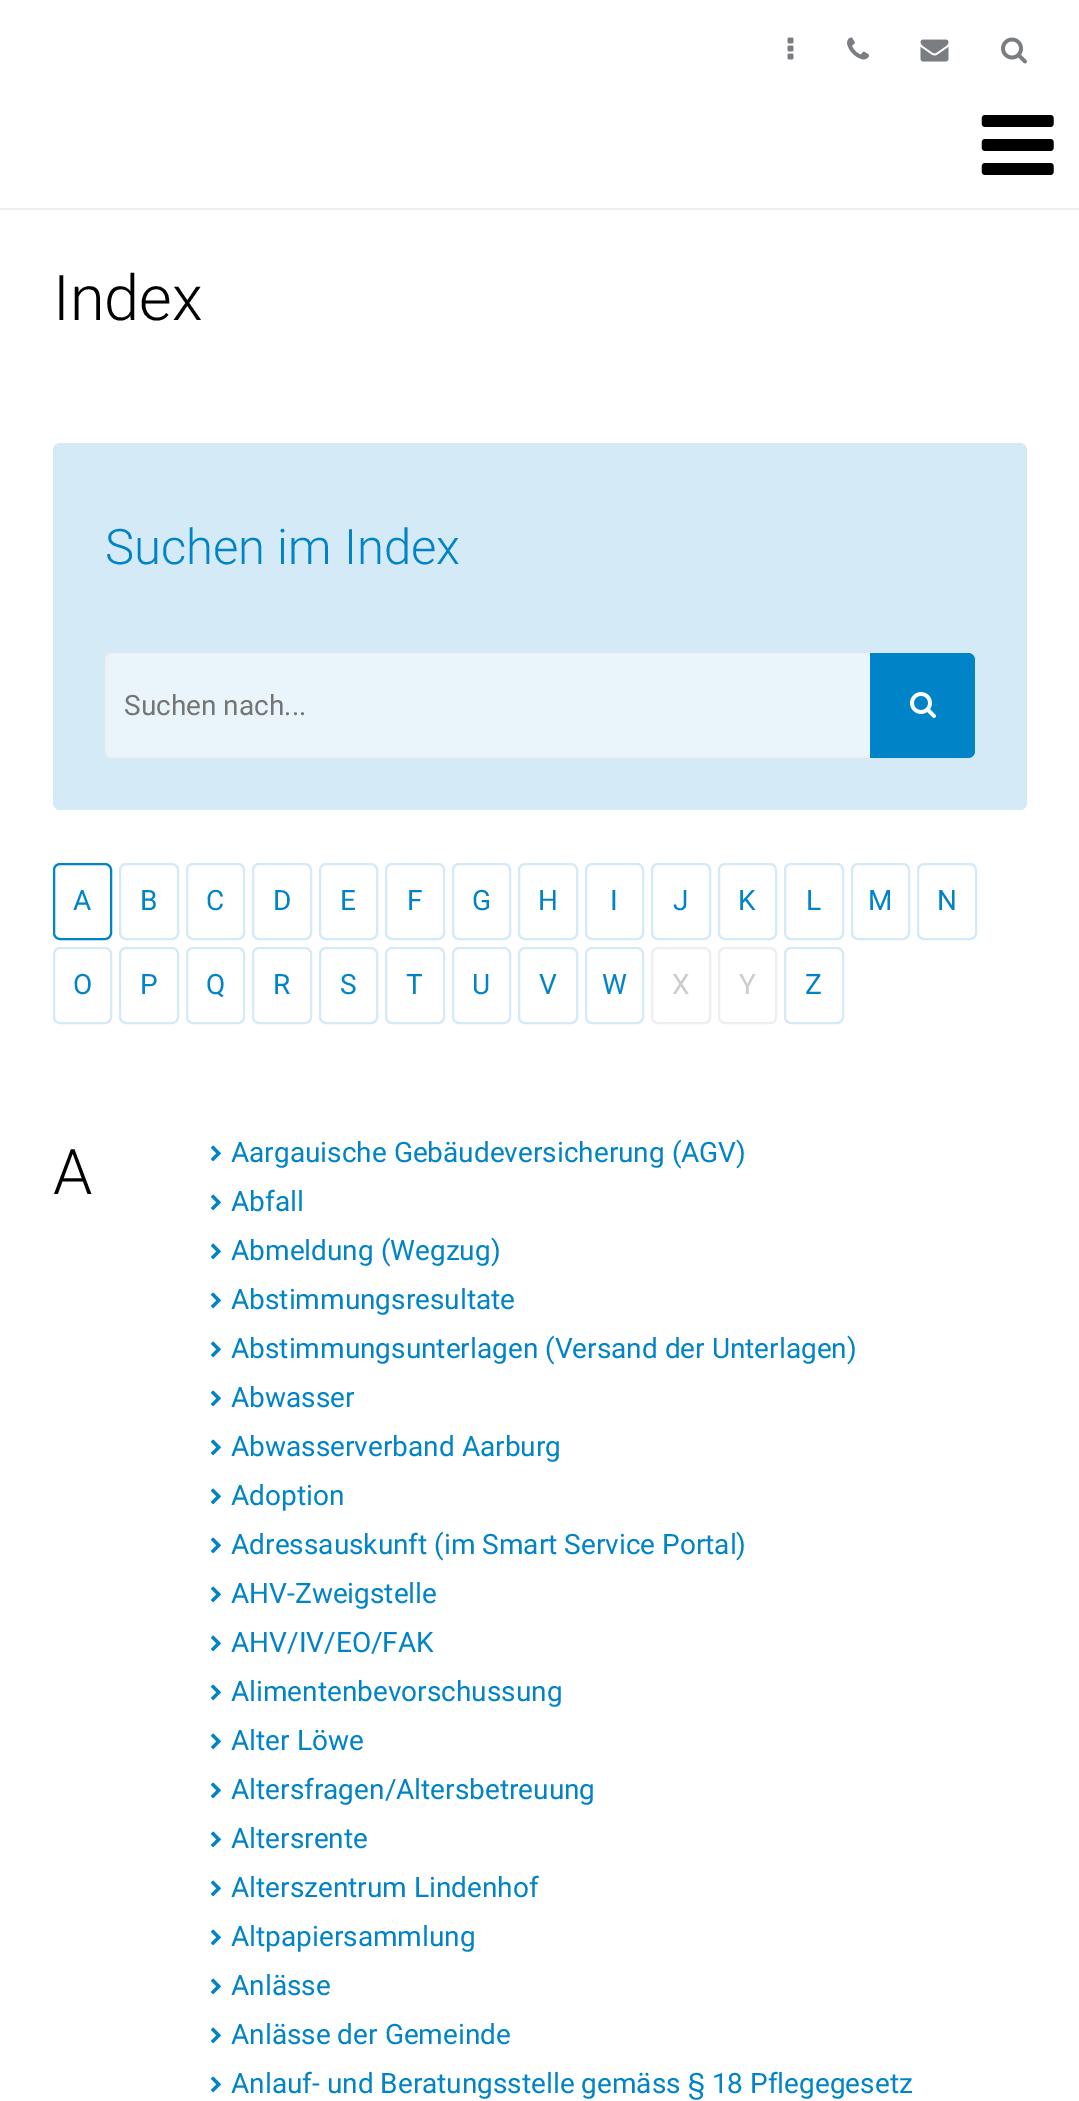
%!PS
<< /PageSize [1079 2101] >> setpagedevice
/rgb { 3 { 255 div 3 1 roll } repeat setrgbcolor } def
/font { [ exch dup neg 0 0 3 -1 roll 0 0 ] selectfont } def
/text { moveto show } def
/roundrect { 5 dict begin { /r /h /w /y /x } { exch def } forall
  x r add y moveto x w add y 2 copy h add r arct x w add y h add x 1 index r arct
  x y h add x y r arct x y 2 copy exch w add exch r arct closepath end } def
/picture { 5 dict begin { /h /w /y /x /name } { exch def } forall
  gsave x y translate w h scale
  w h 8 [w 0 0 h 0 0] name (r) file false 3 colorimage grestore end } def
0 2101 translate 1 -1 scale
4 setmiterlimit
255 255 255 rgb
0 0 1079 2101 rectfill
239 239 239 rgb
0 208 1079 2 rectfill
(img_01.rgb) 787 37 7 23 picture
(img_02.rgb) 847 37 22 23 picture
(img_03.rgb) 920 39 29 23 picture
(img_04.rgb) 1001 37 26 27 picture
(img_05.rgb) 981 115 73 60 picture
212 234 246 rgb
53 443 974 367 7 roundrect fill
234 245 251 rgb
112 653 moveto 758 0 rlineto 0 105 rlineto -758 0 rlineto -4 0 -7 -3 -7 -7 rcurveto 0 -91 rlineto 0 -4 3 -7 7 -7 rcurveto closepath fill
239 239 239 rgb
112 653 moveto 758 0 rlineto 0 105 rlineto -758 0 rlineto -4 0 -7 -3 -7 -7 rcurveto 0 -91 rlineto 0 -4 3 -7 7 -7 rcurveto closepath 112 654 moveto 758 0 rlineto 0 102 rlineto -758 0 rlineto -3 0 -5 -2 -5 -5 rcurveto 0 -91 rlineto 0 -3 2 -6 5 -6 rcurveto closepath eofill
0 131 199 rgb
870 653 moveto 98 0 rlineto 4 0 7 3 7 7 rcurveto 0 91 rlineto 0 4 -3 7 -7 7 rcurveto -98 0 rlineto closepath fill
(img_06.rgb) 910 692 26 26 picture
2 setlinewidth
54 864 57 75 6 roundrect stroke
212 234 246 rgb
120 864 58 75 6 roundrect stroke
187 864 57 75 6 roundrect stroke
253 864 58 75 6 roundrect stroke
320 864 57 75 6 roundrect stroke
386 864 58 75 6 roundrect stroke
453 864 57 75 6 roundrect stroke
519 864 58 75 6 roundrect stroke
586 864 57 75 6 roundrect stroke
652 864 58 75 6 roundrect stroke
719 864 57 75 6 roundrect stroke
785 864 58 75 6 roundrect stroke
852 864 57 75 6 roundrect stroke
918 864 58 75 6 roundrect stroke
54 948 57 75 6 roundrect stroke
120 948 58 75 6 roundrect stroke
187 948 57 75 6 roundrect stroke
253 948 58 75 6 roundrect stroke
320 948 57 75 6 roundrect stroke
386 948 58 75 6 roundrect stroke
453 948 57 75 6 roundrect stroke
519 948 58 75 6 roundrect stroke
586 948 57 75 6 roundrect stroke
238 238 238 rgb
652 948 58 75 6 roundrect stroke
719 948 57 75 6 roundrect stroke
212 234 246 rgb
785 948 58 75 6 roundrect stroke
(img_07.rgb) 210 1145 11 17 picture
(img_07.rgb) 210 1194 11 17 picture
(img_07.rgb) 210 1243 11 17 picture
(img_07.rgb) 210 1292 11 17 picture
(img_07.rgb) 210 1341 11 17 picture
(img_07.rgb) 210 1390 11 17 picture
(img_07.rgb) 210 1439 11 17 picture
(img_07.rgb) 210 1488 11 17 picture
(img_07.rgb) 210 1537 11 17 picture
(img_07.rgb) 210 1586 11 17 picture
(img_07.rgb) 210 1635 11 17 picture
(img_07.rgb) 210 1684 11 17 picture
(img_07.rgb) 210 1733 11 17 picture
(img_07.rgb) 210 1782 11 17 picture
(img_07.rgb) 210 1831 11 17 picture
(img_07.rgb) 210 1880 11 17 picture
(img_07.rgb) 210 1929 11 17 picture
(img_07.rgb) 210 1978 11 17 picture
(img_07.rgb) 210 2027 11 17 picture
(img_07.rgb) 210 2076 11 17 picture
/Roboto-Light 63 font
0 0 0 rgb
(Index) 53 320 text
/Roboto-Light 49 font
0 131 199 rgb
(Suchen im Index) 105 564 text
/Roboto-Regular 28 font
117 117 117 rgb
(Suchen nach...) 124 715 text
0 131 199 rgb
(A) 73 910 text
(B) 140 910 text
(C) 206 910 text
(D) 273 910 text
(E) 340 910 text
(F) 407 910 text
(G) 472 910 text
(H) 538 910 text
(I) 610 910 text
(J) 673 910 text
(K) 738 910 text
(L) 806 910 text
(M) 868 910 text
(N) 937 910 text
(O) 73 994 text
(P) 140 994 text
(Q) 206 994 text
(R) 273 994 text
(S) 340 994 text
(T) 406 994 text
(U) 472 994 text
(V) 539 994 text
(W) 602 994 text
204 204 204 rgb
(X) 672 994 text
(Y) 739 994 text
0 131 199 rgb
(Z) 805 994 text
/Roboto-Light 63 font
0 0 0 rgb
(A) 53 1194 text
/Roboto-Regular 28 font
0 131 199 rgb
(Aargauische Gebäudeversicherung \(AGV\)) 231 1162 text
(Abfall) 231 1211 text
(Abmeldung \(Wegzug\)) 231 1260 text
(Abstimmungsresultate) 231 1309 text
(Abstimmungsunterlagen \(Versand der Unterlagen\)) 231 1358 text
(Abwasser) 231 1407 text
(Abwasserverband Aarburg) 231 1456 text
(Adoption) 231 1505 text
(Adressauskunft \(im Smart Service Portal\)) 231 1554 text
(AHV-Zweigstelle) 231 1603 text
(AHV/IV/EO/FAK) 231 1652 text
(Alimentenbevorschussung) 231 1701 text
(Alter Löwe) 231 1750 text
(Altersfragen/Altersbetreuung) 231 1799 text
(Altersrente) 231 1848 text
(Alterszentrum Lindenhof) 231 1897 text
(Altpapiersammlung) 231 1946 text
(Anlässe) 231 1995 text
(Anlässe der Gemeinde) 231 2044 text
(Anlauf- und Beratungsstelle gemäss § 18 Pflegegesetz) 231 2093 text
showpage
